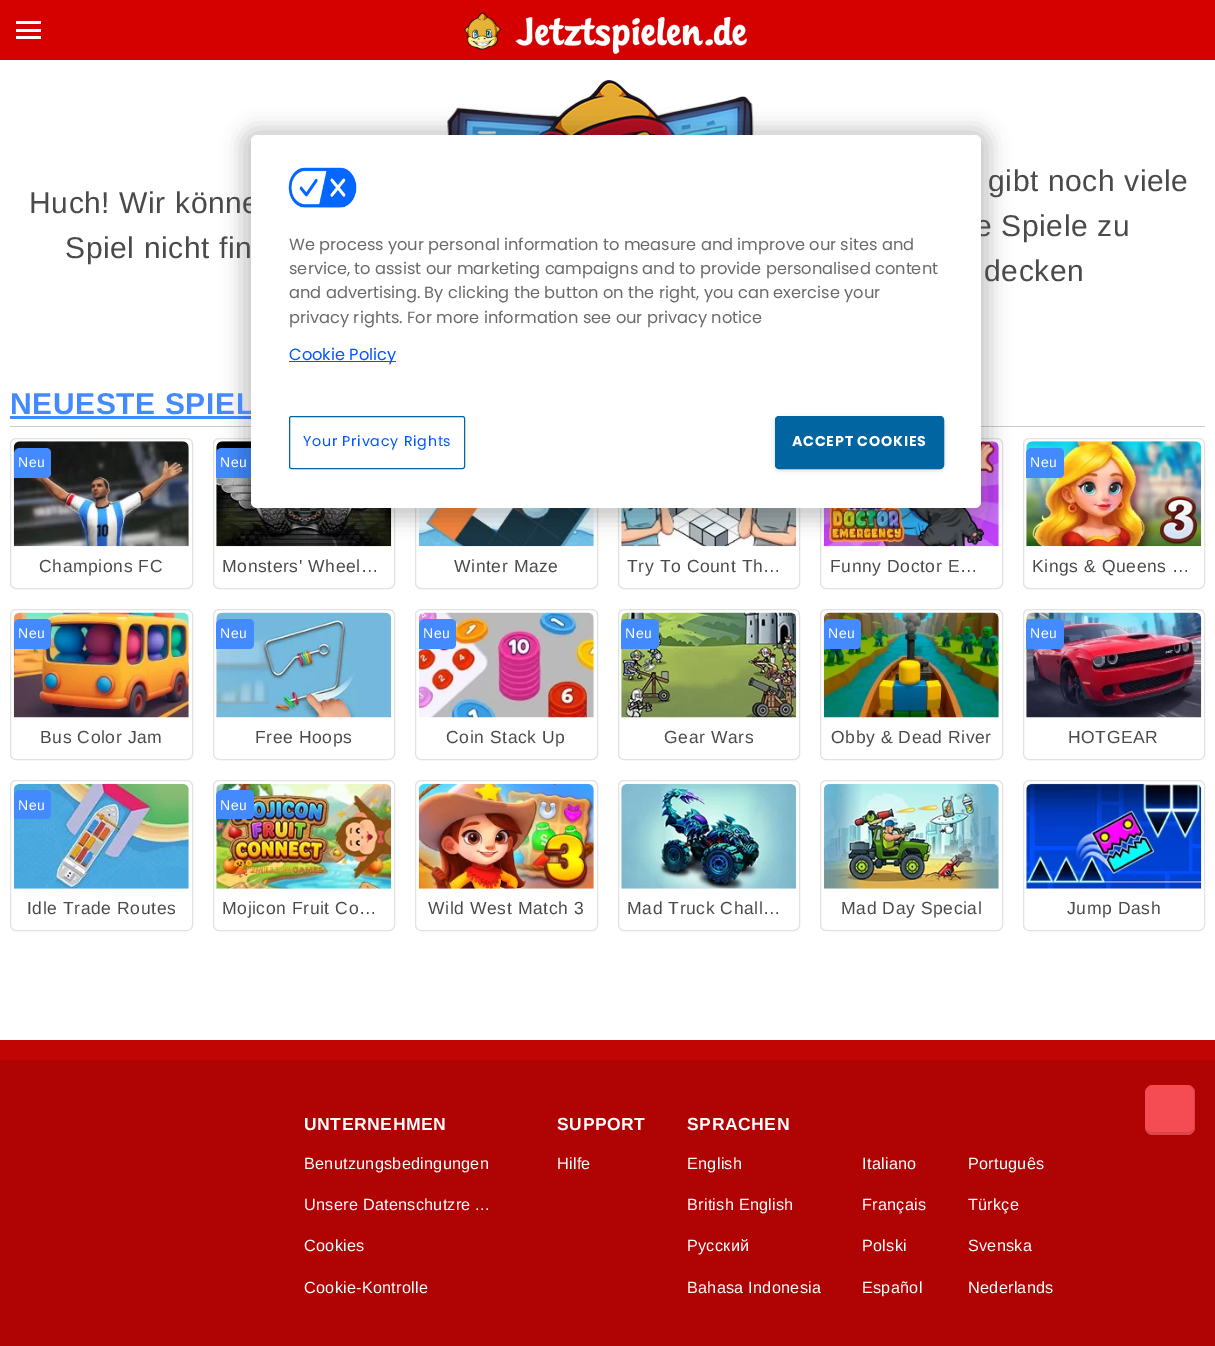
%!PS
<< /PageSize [1215 1346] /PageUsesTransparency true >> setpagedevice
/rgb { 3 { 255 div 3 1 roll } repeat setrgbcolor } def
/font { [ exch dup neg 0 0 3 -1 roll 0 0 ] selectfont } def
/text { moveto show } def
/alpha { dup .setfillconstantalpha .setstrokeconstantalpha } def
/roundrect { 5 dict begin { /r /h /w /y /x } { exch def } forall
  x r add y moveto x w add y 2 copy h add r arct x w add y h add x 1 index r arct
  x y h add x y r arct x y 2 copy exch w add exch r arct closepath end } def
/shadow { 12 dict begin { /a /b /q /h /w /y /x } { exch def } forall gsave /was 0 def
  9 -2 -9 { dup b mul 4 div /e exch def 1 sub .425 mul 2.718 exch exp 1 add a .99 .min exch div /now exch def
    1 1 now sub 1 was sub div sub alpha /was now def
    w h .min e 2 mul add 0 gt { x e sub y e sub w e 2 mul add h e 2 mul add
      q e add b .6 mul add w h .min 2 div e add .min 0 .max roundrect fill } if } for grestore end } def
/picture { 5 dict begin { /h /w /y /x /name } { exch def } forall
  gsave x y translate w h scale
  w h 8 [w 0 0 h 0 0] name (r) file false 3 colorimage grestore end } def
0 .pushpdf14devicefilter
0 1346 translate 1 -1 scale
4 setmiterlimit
213 0 0 rgb
0 0 1215 1346 rectfill
255 255 255 rgb
16 21 25 3 rectfill
16 29 25 3 rectfill
16 36 25 3 rectfill
(img_01.rgb) 464 12 283 42 picture
0 60 1215 980 rectfill
(img_02.rgb) 447 80 307 55 picture
204 204 204 rgb
10 426 1195 1 rectfill
67 138 254 rgb
10 416 241 3 rectfill
226 226 226 rgb
10.5 438.5 182 150 5.5 roundrect stroke
(img_03.rgb) 13 441 176 106 picture
67 138 254 rgb
20 448 moveto 26 0 rlineto 3 0 5 2 5 5 rcurveto 0 20 rlineto 0 3 -2 5 -5 5 rcurveto -32 0 rlineto 0 -24 rlineto 0 -3.5 2.5 -6 6 -6 rcurveto closepath fill
226 226 226 rgb
213.5 438.5 181 150 5.5 roundrect stroke
(img_04.rgb) 216 441 176 106 picture
67 138 254 rgb
222 448 moveto 27 0 rlineto 3 0 5 2 5 5 rcurveto 0 20 rlineto 0 3 -2 5 -5 5 rcurveto -33 0 rlineto 0 -24 rlineto 0 -3.5 2.5 -6 6 -6 rcurveto closepath fill
226 226 226 rgb
415.5 438.5 182 150 5.5 roundrect stroke
(img_05.rgb) 418 508 176 39 picture
618.5 438.5 181 150 5.5 roundrect stroke
(img_06.rgb) 621 508 176 39 picture
820.5 438.5 182 150 5.5 roundrect stroke
(img_07.rgb) 823 441 176 106 picture
1023.5 438.5 181 150 5.5 roundrect stroke
(img_08.rgb) 1026 441 176 106 picture
67 138 254 rgb
1032 448 moveto 27 0 rlineto 3 0 5 2 5 5 rcurveto 0 20 rlineto 0 3 -2 5 -5 5 rcurveto -33 0 rlineto 0 -24 rlineto 0 -3.5 2.5 -6 6 -6 rcurveto closepath fill
226 226 226 rgb
10.5 609.5 182 150 5.5 roundrect stroke
(img_09.rgb) 13 612 176 106 picture
67 138 254 rgb
20 619 moveto 26 0 rlineto 3 0 5 2 5 5 rcurveto 0 20 rlineto 0 3 -2 5 -5 5 rcurveto -32 0 rlineto 0 -24 rlineto 0 -3.5 2.5 -6 6 -6 rcurveto closepath fill
226 226 226 rgb
213.5 609.5 181 150 5.5 roundrect stroke
(img_10.rgb) 216 612 176 106 picture
67 138 254 rgb
222 619 moveto 27 0 rlineto 3 0 5 2 5 5 rcurveto 0 20 rlineto 0 3 -2 5 -5 5 rcurveto -33 0 rlineto 0 -24 rlineto 0 -3.5 2.5 -6 6 -6 rcurveto closepath fill
226 226 226 rgb
415.5 609.5 182 150 5.5 roundrect stroke
(img_11.rgb) 418 612 176 106 picture
67 138 254 rgb
425 619 moveto 26 0 rlineto 3 0 5 2 5 5 rcurveto 0 20 rlineto 0 3 -2 5 -5 5 rcurveto -32 0 rlineto 0 -24 rlineto 0 -3.5 2.5 -6 6 -6 rcurveto closepath fill
226 226 226 rgb
618.5 609.5 181 150 5.5 roundrect stroke
(img_12.rgb) 621 612 176 106 picture
67 138 254 rgb
627 619 moveto 27 0 rlineto 3 0 5 2 5 5 rcurveto 0 20 rlineto 0 3 -2 5 -5 5 rcurveto -33 0 rlineto 0 -24 rlineto 0 -3.5 2.5 -6 6 -6 rcurveto closepath fill
226 226 226 rgb
820.5 609.5 182 150 5.5 roundrect stroke
(img_13.rgb) 823 612 176 106 picture
67 138 254 rgb
830 619 moveto 26 0 rlineto 3 0 5 2 5 5 rcurveto 0 20 rlineto 0 3 -2 5 -5 5 rcurveto -32 0 rlineto 0 -24 rlineto 0 -3.5 2.5 -6 6 -6 rcurveto closepath fill
226 226 226 rgb
1023.5 609.5 181 150 5.5 roundrect stroke
(img_14.rgb) 1026 612 176 106 picture
67 138 254 rgb
1032 619 moveto 27 0 rlineto 3 0 5 2 5 5 rcurveto 0 20 rlineto 0 3 -2 5 -5 5 rcurveto -33 0 rlineto 0 -24 rlineto 0 -3.5 2.5 -6 6 -6 rcurveto closepath fill
226 226 226 rgb
10.5 780.5 182 150 5.5 roundrect stroke
(img_15.rgb) 13 783 176 106 picture
67 138 254 rgb
20 790 moveto 26 0 rlineto 3 0 5 2 5 5 rcurveto 0 19 rlineto 0 3 -2 5 -5 5 rcurveto -32 0 rlineto 0 -23 rlineto 0 -3.5 2.5 -6 6 -6 rcurveto closepath fill
226 226 226 rgb
213.5 780.5 181 150 5.5 roundrect stroke
(img_16.rgb) 216 783 176 106 picture
67 138 254 rgb
222 790 moveto 27 0 rlineto 3 0 5 2 5 5 rcurveto 0 19 rlineto 0 3 -2 5 -5 5 rcurveto -33 0 rlineto 0 -23 rlineto 0 -3.5 2.5 -6 6 -6 rcurveto closepath fill
226 226 226 rgb
415.5 780.5 182 150 5.5 roundrect stroke
(img_17.rgb) 418 783 176 106 picture
618.5 780.5 181 150 5.5 roundrect stroke
(img_18.rgb) 621 783 176 106 picture
820.5 780.5 182 150 5.5 roundrect stroke
(img_19.rgb) 823 783 176 106 picture
1023.5 780.5 181 150 5.5 roundrect stroke
(img_20.rgb) 1026 783 176 106 picture
176 4 4 rgb
0 1060 1215 286 rectfill
193 4 4 rgb
0 1040 1215 20 rectfill
245 75 82 rgb
1145 1085 50 50 8 roundrect fill
221 68 74 rgb
1153 1085 moveto 34 0 rlineto 4 0 8 4 8 8 rcurveto 0 34 rlineto 0 4 -4 8 -8 8 rcurveto -34 0 rlineto -4 0 -8 -4 -8 -8 rcurveto 0 -34 rlineto 0 -4 4 -8 8 -8 rcurveto closepath 1153 1085 moveto 34 0 rlineto 4 0 7 4 7 8 rcurveto 0 34 rlineto 0 3 -3 5 -7 5 rcurveto -34 0 rlineto -4 0 -8 -2 -8 -5 rcurveto 0 -34 rlineto 0 -4 4 -8 8 -8 rcurveto closepath eofill
0 0 0 rgb
241 128 750 392 16 9.5 0.2 shadow
/LiberationSans-Regular 30 font
74 74 74 rgb
29 213 moveto 0.6 0 (Huch! Wir könne) ashow
65 258 moveto 0.6 0 (Spiel nicht fin) ashow
988 191 moveto 0.6 0 (gibt noch viele) ashow
975 236 moveto 0.6 0 (e Spiele zu) ashow
984 281 moveto 0.6 0 (decken) ashow
/LiberationSans-Bold 30 font
67 138 254 rgb
10 414 moveto 0.6 0 (NEUESTE SPIEL) ashow
/LiberationSans-Regular 14 font
255 255 255 rgb
18 467 moveto 0.6 0 (Neu) ashow
/LiberationSans-Regular 17.5 font
74 74 74 rgb
39 572 moveto 0.6 0 (Champions FC) ashow
/LiberationSans-Regular 14 font
255 255 255 rgb
220 467 moveto 0.6 0 (Neu) ashow
/LiberationSans-Regular 17.5 font
74 74 74 rgb
222 572 moveto 0.6 0 (Monsters' Wheel…) ashow
454 572 moveto 0.6 0 (Winter Maze) ashow
627 572 moveto 0.6 0 (Try To Count Th…) ashow
830 572 moveto 0.6 0 (Funny Doctor E…) ashow
/LiberationSans-Regular 14 font
255 255 255 rgb
1030 467 moveto 0.6 0 (Neu) ashow
/LiberationSans-Regular 17.5 font
74 74 74 rgb
1032 572 moveto 0.6 0 (Kings & Queens …) ashow
/LiberationSans-Regular 14 font
255 255 255 rgb
18 638 moveto 0.6 0 (Neu) ashow
/LiberationSans-Regular 17.5 font
74 74 74 rgb
40 743 moveto 0.6 0 (Bus Color Jam) ashow
/LiberationSans-Regular 14 font
255 255 255 rgb
220 638 moveto 0.6 0 (Neu) ashow
/LiberationSans-Regular 17.5 font
74 74 74 rgb
255 743 moveto 0.6 0 (Free Hoops) ashow
/LiberationSans-Regular 14 font
255 255 255 rgb
423 638 moveto 0.6 0 (Neu) ashow
/LiberationSans-Regular 17.5 font
74 74 74 rgb
446 743 moveto 0.6 0 (Coin Stack Up) ashow
/LiberationSans-Regular 14 font
255 255 255 rgb
625 638 moveto 0.6 0 (Neu) ashow
/LiberationSans-Regular 17.5 font
74 74 74 rgb
664 743 moveto 0.6 0 (Gear Wars) ashow
/LiberationSans-Regular 14 font
255 255 255 rgb
828 638 moveto 0.6 0 (Neu) ashow
/LiberationSans-Regular 17.5 font
74 74 74 rgb
831 743 moveto 0.6 0 (Obby & Dead River) ashow
/LiberationSans-Regular 14 font
255 255 255 rgb
1030 638 moveto 0.6 0 (Neu) ashow
/LiberationSans-Regular 17.5 font
74 74 74 rgb
1068 743 moveto 0.6 0 (HOTGEAR) ashow
/LiberationSans-Regular 14 font
255 255 255 rgb
18 810 moveto 0.6 0 (Neu) ashow
/LiberationSans-Regular 17.5 font
74 74 74 rgb
27 914 moveto 0.6 0 (Idle Trade Routes) ashow
/LiberationSans-Regular 14 font
255 255 255 rgb
220 810 moveto 0.6 0 (Neu) ashow
/LiberationSans-Regular 17.5 font
74 74 74 rgb
222 914 moveto 0.6 0 (Mojicon Fruit Co…) ashow
428 914 moveto 0.6 0 (Wild West Match 3) ashow
627 914 moveto 0.6 0 (Mad Truck Chall…) ashow
841 914 moveto 0.6 0 (Mad Day Special) ashow
1067 914 moveto 0.6 0 (Jump Dash) ashow
/LiberationSans-Bold 17.5 font
255 255 255 rgb
304 1130 moveto 0.6 0 (UNTERNEHMEN) ashow
/LiberationSans-Regular 16.25 font
304 1169 moveto 0.25 0 (Benutzungsbedingungen) ashow
304 1210 moveto 0.25 0 (Unsere Datenschutzre ...) ashow
304 1251 moveto 0.25 0 (Cookies) ashow
304 1293 moveto 0.25 0 (Cookie-Kontrolle) ashow
/LiberationSans-Bold 17.5 font
557 1130 moveto 0.6 0 (SUPPORT) ashow
/LiberationSans-Regular 16.25 font
557 1169 moveto 0.25 0 (Hilfe) ashow
/LiberationSans-Bold 17.5 font
687 1130 moveto 0.6 0 (SPRACHEN) ashow
/LiberationSans-Regular 16.25 font
687 1169 moveto 0.25 0 (English) ashow
862 1169 moveto 0.25 0 (Italiano) ashow
968 1169 moveto 0.25 0 (Português) ashow
687 1210 moveto 0.25 0 (British English) ashow
862 1210 moveto 0.25 0 (Français) ashow
968 1210 moveto 0.25 0 (Türkçe) ashow
687 1251 moveto 0.25 0 (Русский) ashow
862 1251 moveto 0.25 0 (Polski) ashow
968 1251 moveto 0.25 0 (Svenska) ashow
687 1293 moveto 0.25 0 (Bahasa Indonesia) ashow
862 1293 moveto 0.25 0 (Español) ashow
968 1293 moveto 0.25 0 (Nederlands) ashow
251 135 730 373 6 roundrect fill
(img_21.rgb) 288 167 69 41 picture
/Poppins-Regular 16.25 font
105 105 105 rgb
(We process your personal information to measure and improve our sites and) 289 250 text
(service, to assist our marketing campaigns and to provide personalised content) 289 274 text
(and advertising. By clicking the button on the right, you can exercise your) 289 298 text
(privacy rights. For more information see our privacy notice) 289 323 text
0 85 255 rgb
289 361 107 1 rectfill
(Cookie Policy) 289 360 text
0 101 160 rgb
289.5 416.5 175 52 2 roundrect stroke
/Poppins-Regular 14.25 font
0 85 255 rgb
303 446 moveto 0.75 0 (Your Privacy Rights) ashow
0 0 0 rgb
775 418 169 52 4 2.5 0.16 shadow
0 101 160 rgb
775.5 416.5 168 52 3.5 roundrect gsave fill grestore
stroke
/Poppins-Bold 14.25 font
255 255 255 rgb
792 446 moveto 0.75 0 (ACCEPT COOKIES) ashow
.poppdf14devicefilter showpage
